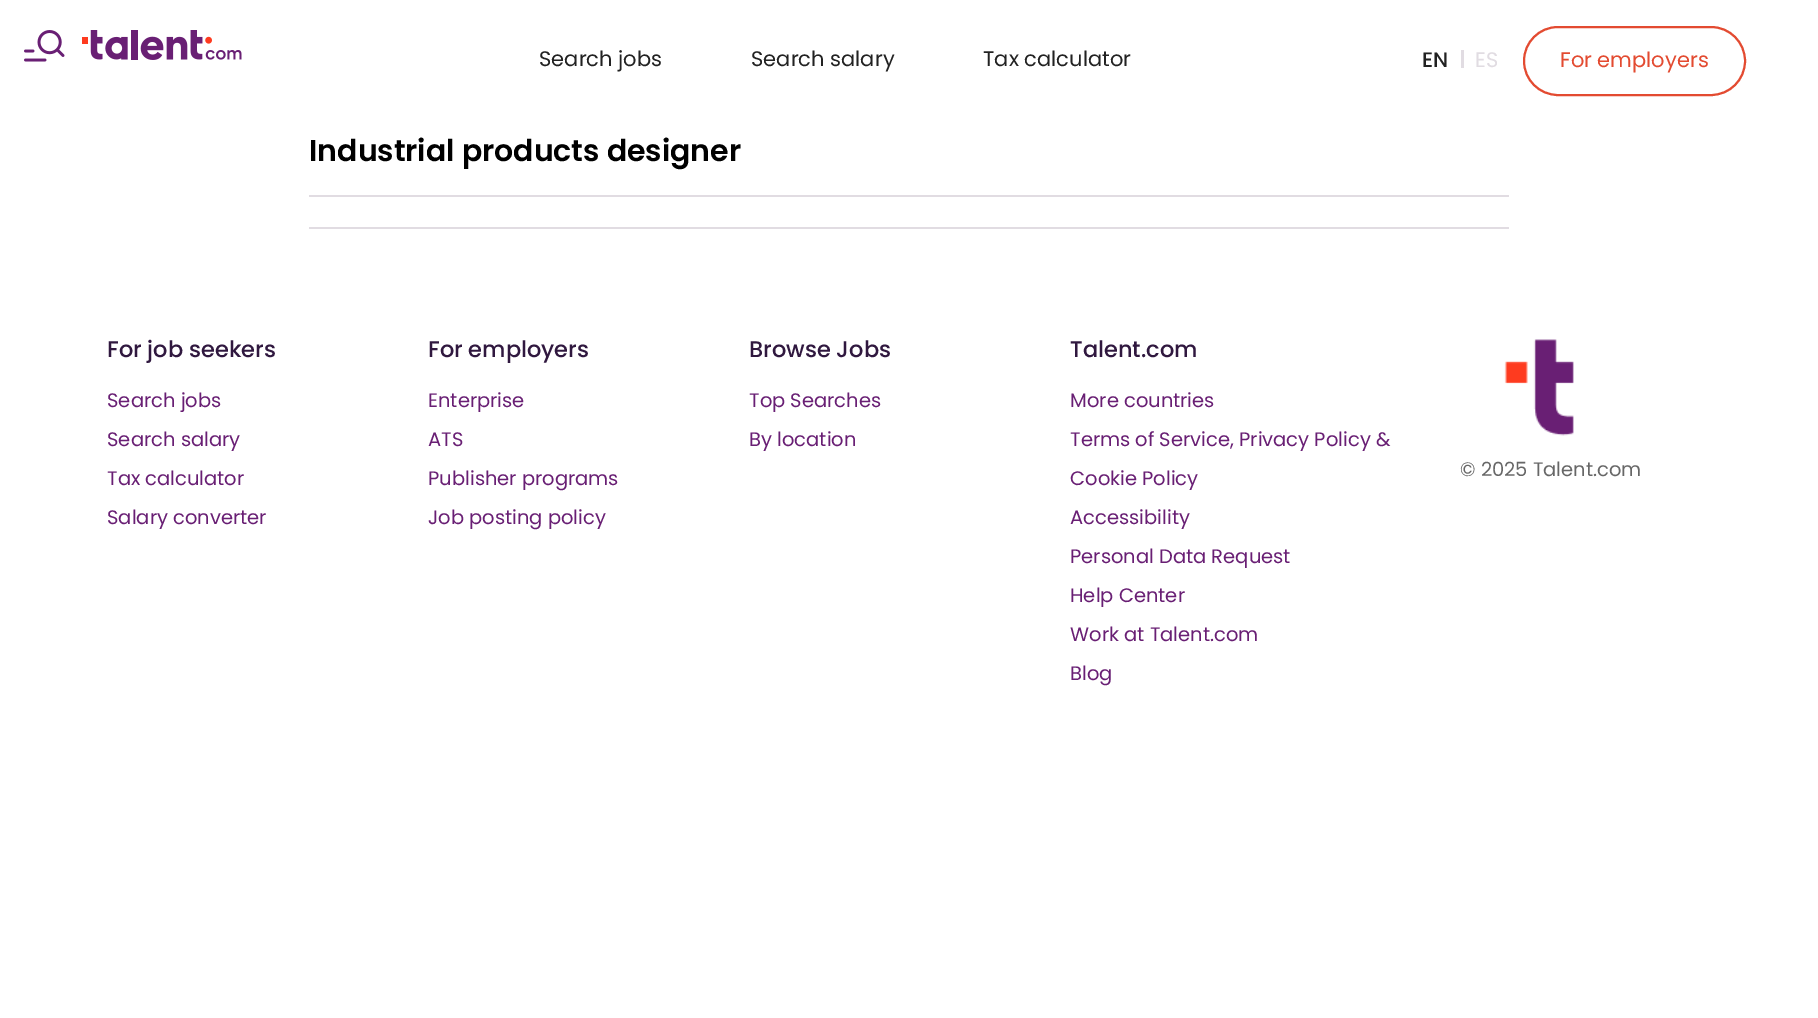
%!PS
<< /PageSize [1818 1018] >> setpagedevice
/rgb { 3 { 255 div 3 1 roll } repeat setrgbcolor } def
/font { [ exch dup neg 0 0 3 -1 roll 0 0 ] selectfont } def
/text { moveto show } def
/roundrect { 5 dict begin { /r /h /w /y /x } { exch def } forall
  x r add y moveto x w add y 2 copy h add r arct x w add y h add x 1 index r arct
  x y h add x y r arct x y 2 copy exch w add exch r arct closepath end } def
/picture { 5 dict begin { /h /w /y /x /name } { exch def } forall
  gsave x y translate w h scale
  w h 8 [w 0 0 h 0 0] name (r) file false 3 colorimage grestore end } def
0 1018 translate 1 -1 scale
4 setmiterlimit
255 255 255 rgb
0 0 1818 1018 rectfill
(img_01.rgb) 24 30 41 32 picture
(img_02.rgb) 82 30 160 30 picture
225 220 226 rgb
1461 50 3 18 rectfill
227 75 49 rgb
2 setlinewidth
1524 27 221 68 34 roundrect stroke
225 220 226 rgb
309 195 1200 2 rectfill
309 227 1200 2 rectfill
(img_03.rgb) 1504 339 70 97 picture
/Poppins-Regular 21 font
34 34 34 rgb
(Search jobs) 539 66 text
(Search salary) 751 66 text
(Tax calculator) 983 66 text
/Poppins-Medium 21 font
(EN) 1422 67 text
/Poppins-Regular 21 font
225 220 226 rgb
(ES) 1475 67 text
227 75 49 rgb
(For employers) 1560 67 text
/Poppins-SemiBold 30 font
0 0 0 rgb
(Industrial products designer) 309 161 text
/Poppins-Medium 22.5 font
48 24 63 rgb
(For job seekers) 107 357 text
/Poppins-Regular 19.5 font
105 31 116 rgb
(Search jobs) 107 407 text
(Search salary) 107 446 text
(Tax calculator) 107 485 text
(Salary converter) 107 524 text
/Poppins-Medium 22.5 font
48 24 63 rgb
(For employers) 428 357 text
/Poppins-Regular 19.5 font
105 31 116 rgb
(Enterprise) 428 407 text
(ATS) 428 446 text
(Publisher programs) 428 485 text
(Job posting policy) 428 524 text
/Poppins-Medium 22.5 font
48 24 63 rgb
(Browse Jobs) 749 357 text
/Poppins-Regular 19.5 font
105 31 116 rgb
(Top Searches) 749 407 text
(By location) 749 446 text
/Poppins-Medium 22.5 font
48 24 63 rgb
(Talent.com) 1070 357 text
/Poppins-Regular 19.5 font
105 31 116 rgb
(More countries) 1070 407 text
(Terms of Service, Privacy Policy &) 1070 446 text
(Cookie Policy) 1070 485 text
(Accessibility) 1070 524 text
(Personal Data Request) 1070 563 text
(Help Center) 1070 602 text
(Work at Talent.com) 1070 641 text
(Blog) 1070 680 text
103 103 103 rgb
(© 2025 Talent.com) 1460 476 text
showpage
